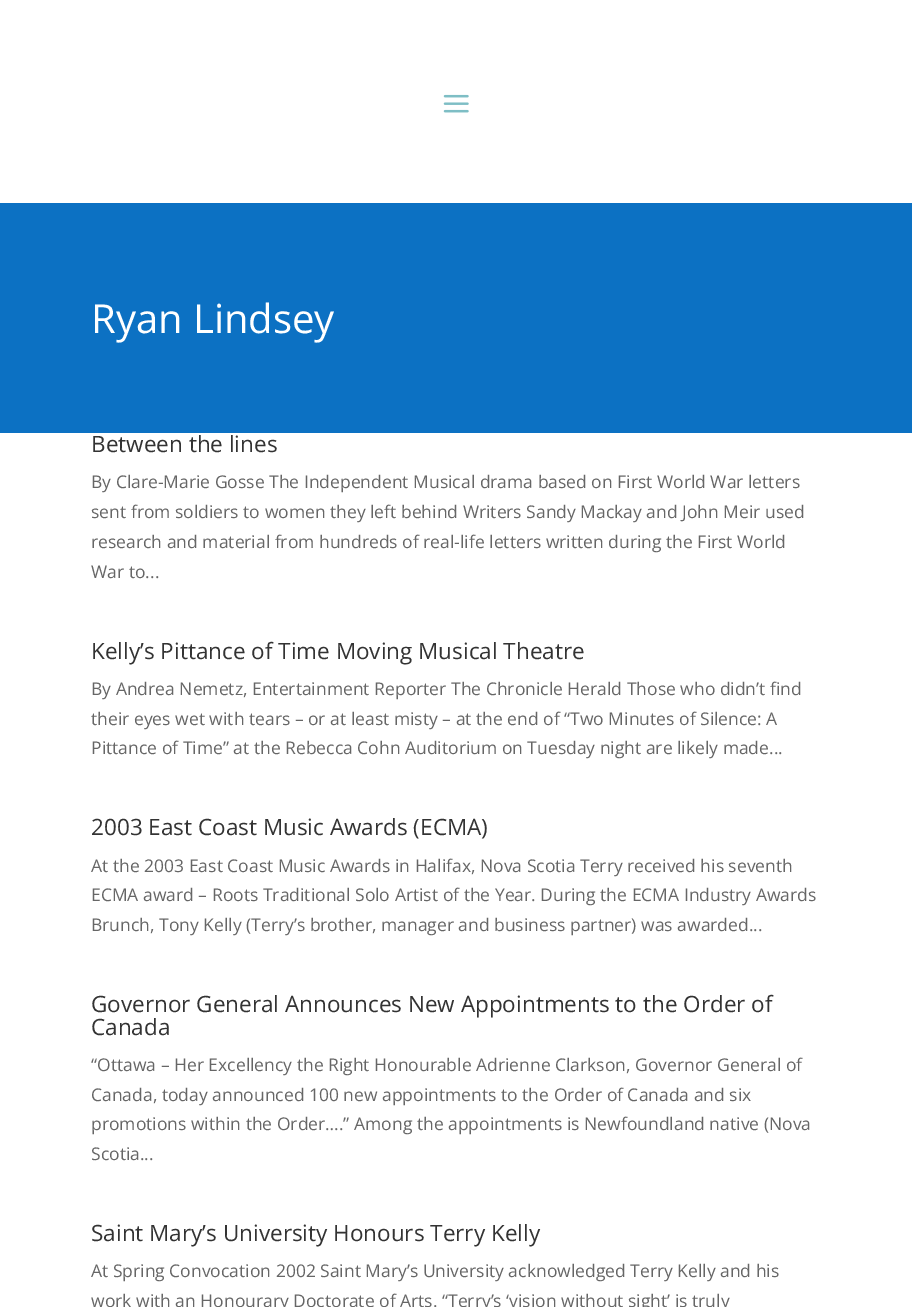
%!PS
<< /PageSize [912 1307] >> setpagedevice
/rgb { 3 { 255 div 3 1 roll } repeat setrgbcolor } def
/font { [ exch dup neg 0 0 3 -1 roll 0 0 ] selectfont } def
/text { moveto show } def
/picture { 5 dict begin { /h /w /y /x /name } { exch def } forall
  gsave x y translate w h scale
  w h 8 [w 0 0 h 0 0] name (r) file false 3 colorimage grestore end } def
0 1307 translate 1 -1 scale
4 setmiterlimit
255 255 255 rgb
0 0 912 1307 rectfill
(img_01.rgb) 443 94 26 19 picture
12 113 195 rgb
0 203 912 230 rectfill
/OpenSans-Regular 40 font
255 255 255 rgb
(Ryan Lindsey) 91 333 text
/OpenSans-Regular 22.5 font
51 51 51 rgb
(Between the lines) 91 452 text
/OpenSans-Regular 17.5 font
102 102 102 rgb
(By Clare-Marie Gosse The Independent Musical drama based on First World War letters) 91 488 text
(sent from soldiers to women they left behind Writers Sandy Mackay and John Meir used) 91 518 text
(research and material from hundreds of real-life letters written during the First World) 91 548 text
(War to...) 91 578 text
/OpenSans-Regular 22.5 font
51 51 51 rgb
(Kelly’s Pittance of Time Moving Musical Theatre) 91 659 text
/OpenSans-Regular 17.5 font
102 102 102 rgb
(By Andrea Nemetz, Entertainment Reporter The Chronicle Herald Those who didn’t find) 91 695 text
(their eyes wet with tears – or at least misty – at the end of “Two Minutes of Silence: A) 91 725 text
(Pittance of Time” at the Rebecca Cohn Auditorium on Tuesday night are likely made...) 91 754 text
/OpenSans-Regular 22.5 font
51 51 51 rgb
(2003 East Coast Music Awards \(ECMA\)) 91 835 text
/OpenSans-Regular 17.5 font
102 102 102 rgb
(At the 2003 East Coast Music Awards in Halifax, Nova Scotia Terry received his seventh) 91 872 text
(ECMA award – Roots Traditional Solo Artist of the Year. During the ECMA Industry Awards) 91 901 text
(Brunch, Tony Kelly \(Terry’s brother, manager and business partner\) was awarded...) 91 931 text
/OpenSans-Regular 22.5 font
51 51 51 rgb
(Governor General Announces New Appointments to the Order of) 91 1012 text
(Canada) 91 1035 text
/OpenSans-Regular 17.5 font
102 102 102 rgb
(“Ottawa – Her Excellency the Right Honourable Adrienne Clarkson, Governor General of) 91 1071 text
(Canada, today announced 100 new appointments to the Order of Canada and six) 91 1101 text
(promotions within the Order….” Among the appointments is Newfoundland native \(Nova) 91 1130 text
(Scotia...) 91 1160 text
/OpenSans-Regular 22.5 font
51 51 51 rgb
(Saint Mary’s University Honours Terry Kelly) 91 1241 text
/OpenSans-Regular 17.5 font
102 102 102 rgb
(At Spring Convocation 2002 Saint Mary’s University acknowledged Terry Kelly and his) 91 1277 text
(work with an Honourary Doctorate of Arts. “Terry’s ‘vision without sight’ is truly) 91 1307 text
showpage
